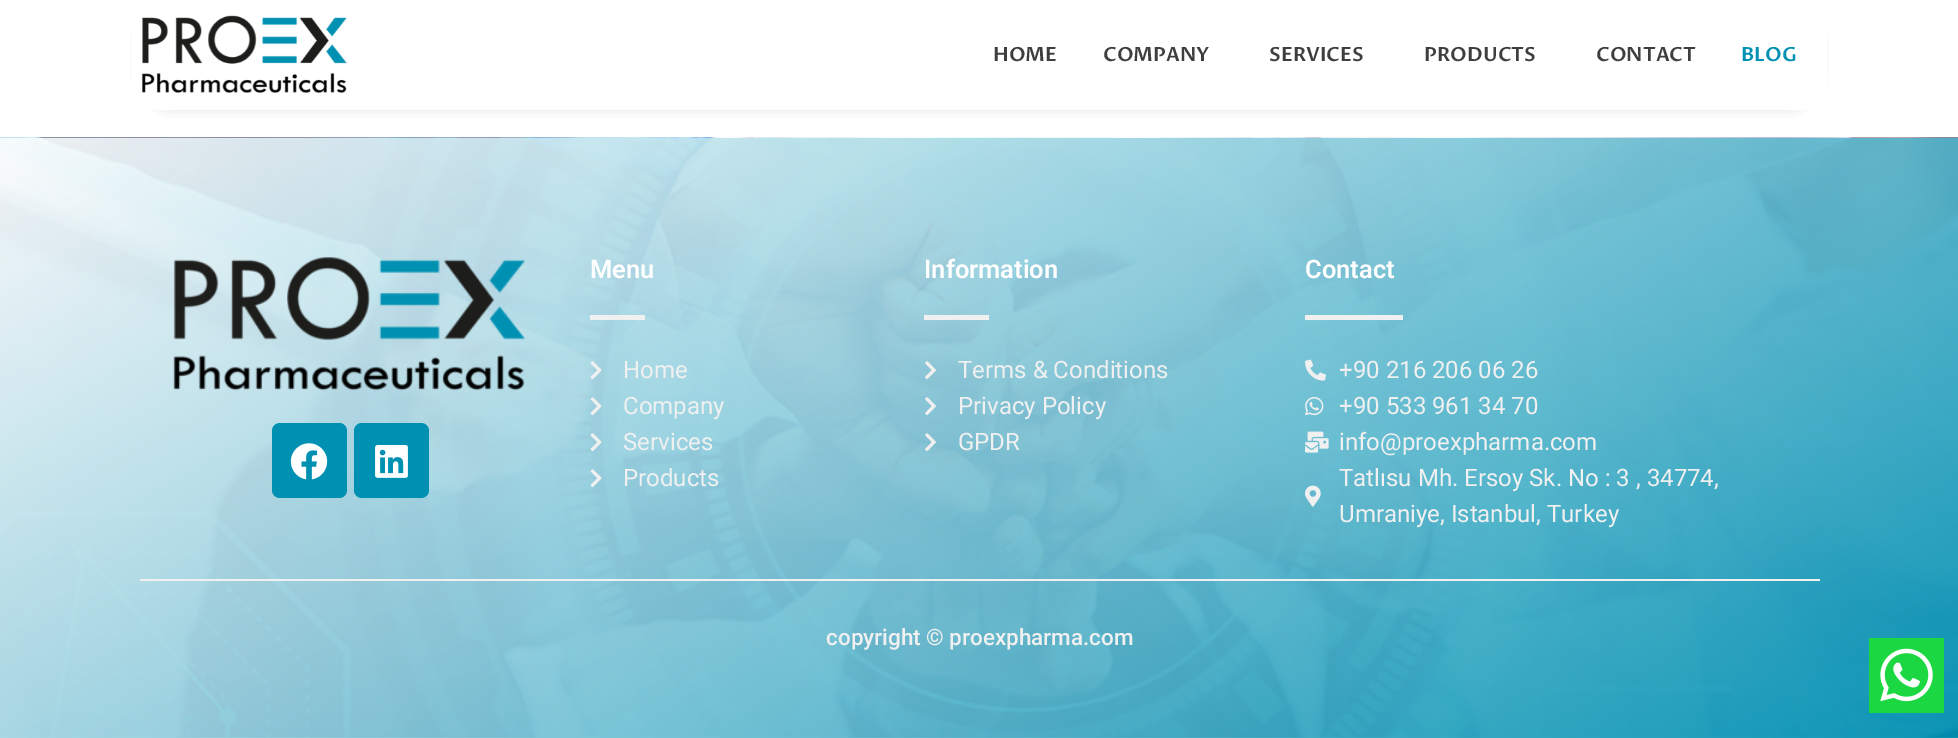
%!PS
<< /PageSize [1958 738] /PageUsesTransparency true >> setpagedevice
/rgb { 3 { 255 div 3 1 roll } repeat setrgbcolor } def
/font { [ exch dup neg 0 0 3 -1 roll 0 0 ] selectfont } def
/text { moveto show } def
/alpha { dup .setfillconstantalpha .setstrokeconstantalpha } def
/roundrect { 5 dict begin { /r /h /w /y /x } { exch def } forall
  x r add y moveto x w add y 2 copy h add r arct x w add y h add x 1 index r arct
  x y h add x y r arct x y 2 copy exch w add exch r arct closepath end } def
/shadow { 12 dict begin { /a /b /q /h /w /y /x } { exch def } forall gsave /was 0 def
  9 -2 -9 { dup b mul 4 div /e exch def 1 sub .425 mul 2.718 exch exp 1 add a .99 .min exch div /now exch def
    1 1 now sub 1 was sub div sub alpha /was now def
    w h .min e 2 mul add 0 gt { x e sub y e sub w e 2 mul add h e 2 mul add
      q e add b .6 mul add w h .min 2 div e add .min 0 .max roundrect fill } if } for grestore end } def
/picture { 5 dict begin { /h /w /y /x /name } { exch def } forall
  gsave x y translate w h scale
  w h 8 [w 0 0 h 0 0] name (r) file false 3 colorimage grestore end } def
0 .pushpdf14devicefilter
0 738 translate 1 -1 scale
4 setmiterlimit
255 255 255 rgb
0 0 1958 738 rectfill
0 0 0 rgb
147 14 1665 87 23 7.5 0.5 shadow
255 255 255 rgb
132 0 1695 110 rectfill
(img_01.rgb) 141 15 206 78 picture
(img_02.rgb) 0 137 1958 601 picture
0.93 alpha
gsave 0 138 moveto 1958 0 rlineto 0 600 rlineto -1958 0 rlineto closepath clip newpath
<< /ShadingType 2 /ColorSpace /DeviceRGB /Coords [605 -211 1354 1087] /Extend [true true] /Function << /FunctionType 2 /Domain [0 1] /C0 [1 1 1] /C1 [0 0.569 0.698] /N 1 >> >> shfill grestore
1 alpha
(img_03.rgb) 173 257 352 134 picture
0 145 178 rgb
272 423 75 75 8 roundrect fill
(img_04.rgb) 290 443 38 37 picture
354 423 75 75 8 roundrect fill
(img_05.rgb) 375 445 33 33 picture
240 240 240 rgb
590 315 55 5 rectfill
(img_06.rgb) 590 361 12 18 picture
(img_07.rgb) 590 397 12 18 picture
(img_08.rgb) 590 433 12 18 picture
(img_09.rgb) 590 469 12 18 picture
924 315 65 5 rectfill
(img_10.rgb) 925 361 11 18 picture
(img_11.rgb) 925 397 11 18 picture
(img_12.rgb) 925 433 11 18 picture
1305 315 98 5 rectfill
(img_13.rgb) 1305 359 21 22 picture
(img_14.rgb) 1305 397 19 19 picture
(img_15.rgb) 1305 431 24 22 picture
(img_16.rgb) 1305 485 16 22 picture
140 579 1680 2 rectfill
(img_17.rgb) 1869 638 75 75 picture
/ProzaLibre-SemiBold 19.5 font
62 62 62 rgb
(HOME) 993 61 text
(COMPANY) 1103 61 text
(SERVICES) 1269 61 text
(PRODUCTS) 1424 61 text
(CONTACT) 1596 61 text
0 145 178 rgb
(BLOG) 1741 61 text
/Roboto-SemiBold 25.5 font
255 255 255 rgb
(Menu) 590 278 text
/Roboto-Regular 24 font
240 240 240 rgb
(Home) 623 378 text
(Company) 623 414 text
(Services) 623 450 text
(Products) 623 486 text
/Roboto-SemiBold 25.5 font
255 255 255 rgb
(Information) 924 278 text
/Roboto-Regular 24 font
240 240 240 rgb
(Terms & Conditions) 958 378 text
(Privacy Policy) 958 414 text
(GPDR) 958 450 text
/Roboto-SemiBold 25.5 font
255 255 255 rgb
(Contact) 1305 278 text
/Roboto-Regular 24 font
240 240 240 rgb
(+90 216 206 06 26) 1339 378 text
(+90 533 961 34 70) 1339 414 text
(info@proexpharma.com) 1339 450 text
(Tatlısu Mh. Ersoy Sk. No : 3 , 34774,) 1339 486 text
(Umraniye, Istanbul, Turkey) 1339 522 text
/Roboto-Medium 22.5 font
(copyright © proexpharma.com) 826 645 text
.poppdf14devicefilter showpage
